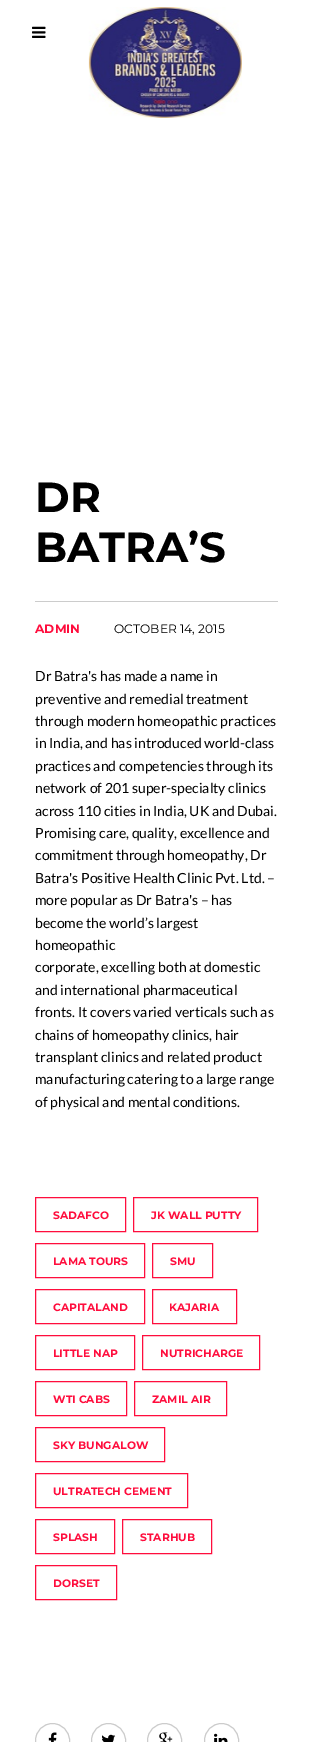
%!PS
<< /PageSize [313 1742] >> setpagedevice
/rgb { 3 { 255 div 3 1 roll } repeat setrgbcolor } def
/font { [ exch dup neg 0 0 3 -1 roll 0 0 ] selectfont } def
/text { moveto show } def
/circle { newpath 0 360 arc closepath } def
/picture { 5 dict begin { /h /w /y /x /name } { exch def } forall
  gsave x y translate w h scale
  w h 8 [w 0 0 h 0 0] name (r) file false 3 colorimage grestore end } def
0 1742 translate 1 -1 scale
4 setmiterlimit
255 255 255 rgb
0 0 313 1742 rectfill
(img_01.rgb) 32 26 14 12 picture
(img_02.rgb) 88 7 154 111 picture
204 204 204 rgb
35 601 243 1 rectfill
255 13 61 rgb
35.5 1197.5 90 34 rectstroke
133.5 1197.5 124 34 rectstroke
35.5 1243.5 109 34 rectstroke
152.5 1243.5 60 34 rectstroke
35.5 1289.5 109 34 rectstroke
152.5 1289.5 84 34 rectstroke
35.5 1335.5 99 34 rectstroke
142.5 1335.5 117 34 rectstroke
35.5 1381.5 91 34 rectstroke
134.5 1381.5 92 34 rectstroke
35.5 1427.5 129 34 rectstroke
35.5 1473.5 152 34 rectstroke
35.5 1519.5 79 34 rectstroke
122.5 1519.5 89 34 rectstroke
35.5 1565.5 81 34 rectstroke
204 204 204 rgb
52.5 1740.5 17 circle stroke
(img_03.rgb) 48 1732 9 10 picture
108.5 1740.5 17 circle stroke
(img_04.rgb) 102 1734 14 8 picture
164.5 1740.5 17 circle stroke
(img_05.rgb) 159 1732 14 10 picture
221.5 1740.5 17 circle stroke
(img_06.rgb) 214 1733 14 9 picture
/Montserrat-Bold 42 font
0 0 0 rgb
(DR) 35 512 text
(BATRA’S) 35 562 text
/Montserrat-Bold 12.25 font
255 13 61 rgb
(ADMIN) 35 633 text
/Montserrat-Regular 12.25 font
0 0 0 rgb
(OCTOBER 14, 2015) 114 633 text
/Lato-Regular 14 font
(Dr Batra's has made a name in) 35 681 text
(preventive and remedial treatment) 35 704 text
(through modern homeopathic practices) 35 726 text
(in India, and has introduced world-class) 35 748 text
(practices and competencies through its) 35 771 text
(network of 201 super-specialty clinics) 35 793 text
(across 110 cities in India, UK and Dubai.) 35 816 text
(Promising care, quality, excellence and) 35 838 text
(commitment through homeopathy, Dr) 35 860 text
(Batra's Positive Health Clinic Pvt. Ltd. –) 35 883 text
(more popular as Dr Batra's – has) 35 905 text
(become the world’s largest) 35 928 text
(homeopathic) 35 950 text
(corporate, excelling both at domestic) 35 972 text
(and international pharmaceutical) 35 995 text
(fronts. It covers varied verticals such as) 35 1017 text
(chains of homeopathy clinics, hair) 35 1040 text
(transplant clinics and related product) 35 1062 text
(manufacturing catering to a large range) 35 1084 text
(of physical and mental conditions.) 35 1107 text
/Montserrat-Bold 10.75 font
255 13 61 rgb
(SADAFCO) 53 1219 text
(JK WALL PUTTY) 151 1219 text
(LAMA TOURS) 53 1265 text
(SMU) 170 1265 text
(CAPITALAND) 53 1311 text
(KAJARIA) 169 1311 text
(LITTLE NAP) 53 1357 text
(NUTRICHARGE) 160 1357 text
(WTI CABS) 53 1403 text
(ZAMIL AIR) 152 1403 text
(SKY BUNGALOW) 53 1449 text
(ULTRATECH CEMENT) 53 1495 text
(SPLASH) 53 1541 text
(STARHUB) 140 1541 text
(DORSET) 53 1587 text
showpage
